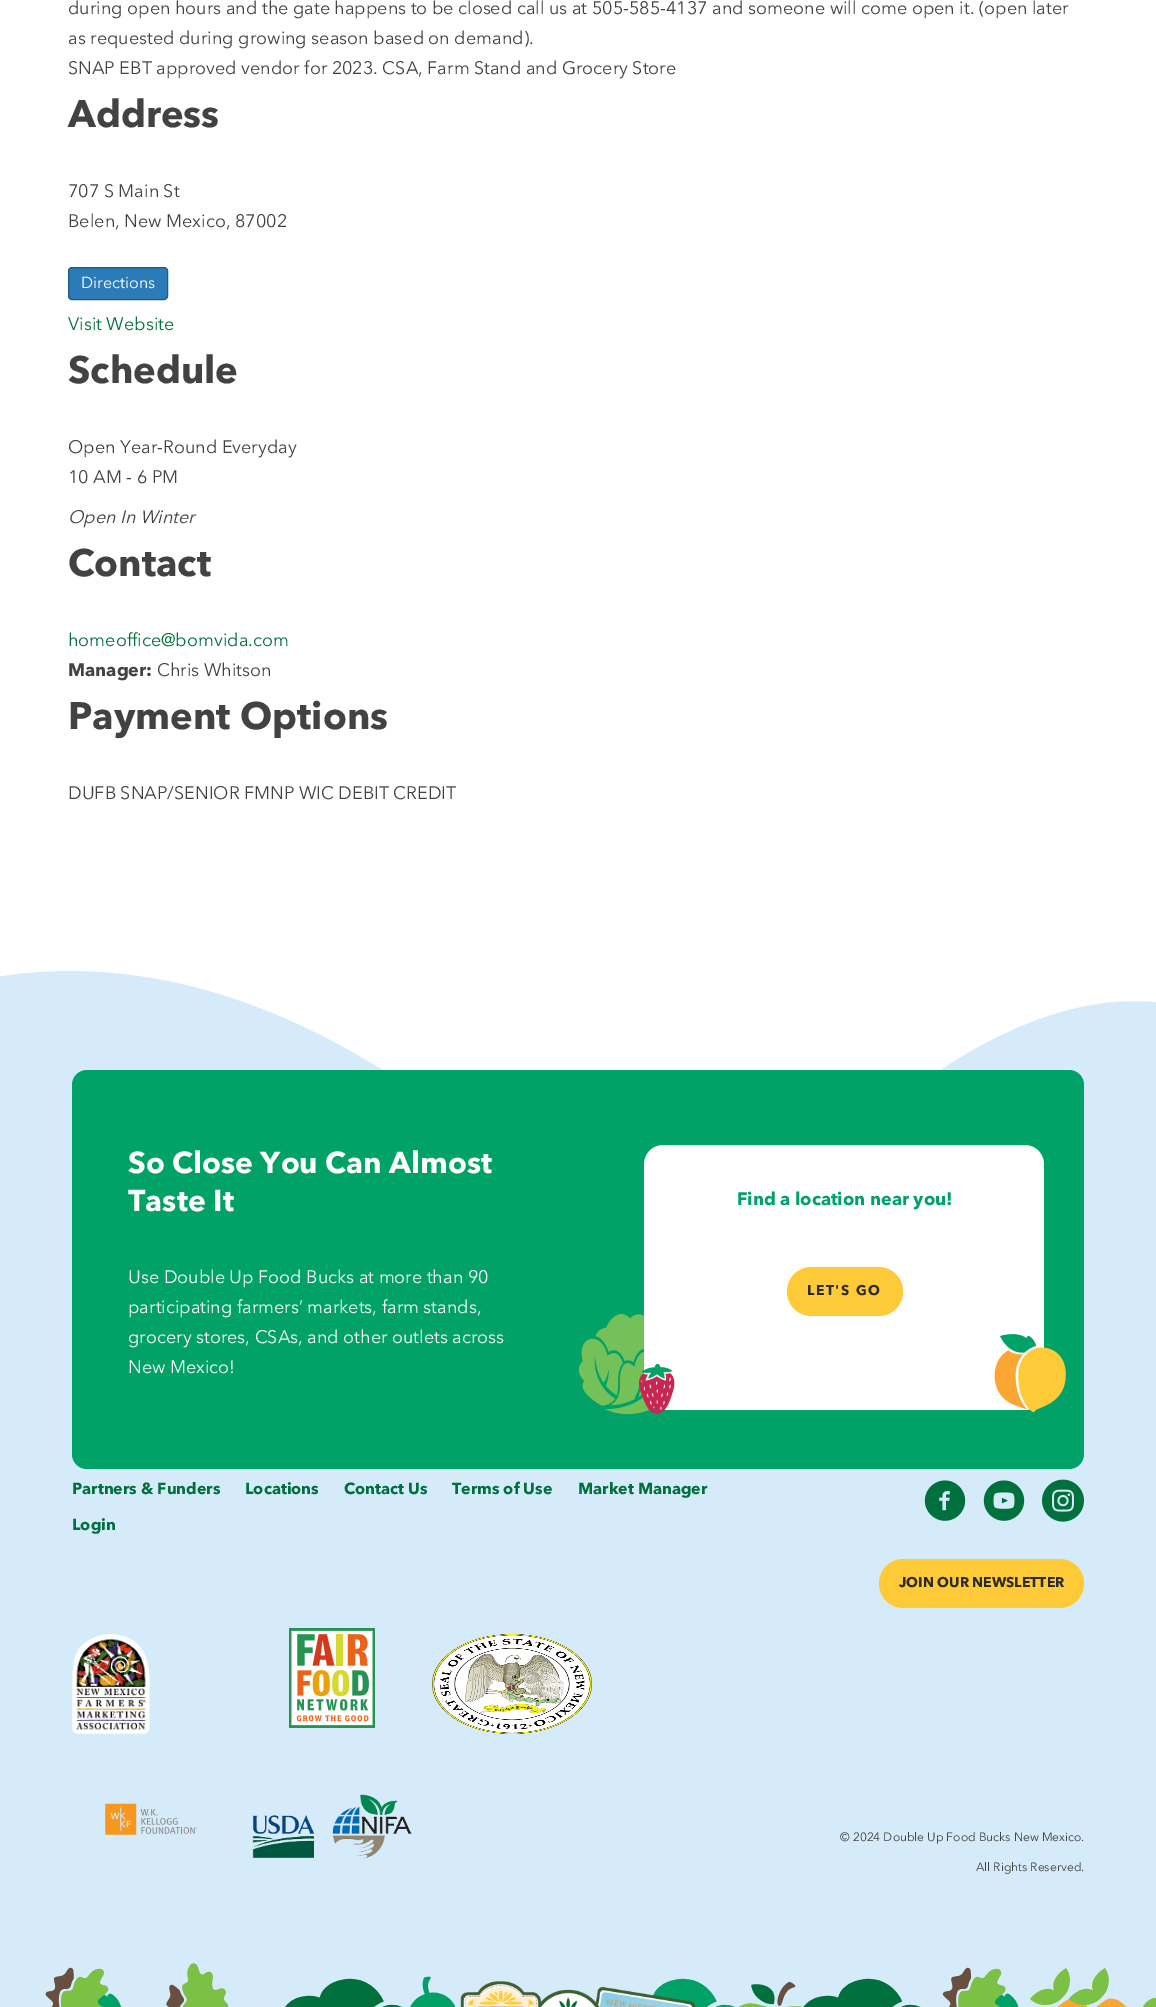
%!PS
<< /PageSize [1156 2007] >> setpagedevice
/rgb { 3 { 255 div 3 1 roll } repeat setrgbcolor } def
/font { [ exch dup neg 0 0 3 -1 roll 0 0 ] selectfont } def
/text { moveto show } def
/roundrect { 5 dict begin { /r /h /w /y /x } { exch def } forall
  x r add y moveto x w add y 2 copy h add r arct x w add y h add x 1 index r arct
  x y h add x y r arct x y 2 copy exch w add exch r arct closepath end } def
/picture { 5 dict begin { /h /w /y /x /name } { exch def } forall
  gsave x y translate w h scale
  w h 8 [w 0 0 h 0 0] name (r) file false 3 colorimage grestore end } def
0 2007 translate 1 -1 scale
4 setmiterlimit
255 255 255 rgb
0 0 1156 2007 rectfill
43 123 185 rgb
68.5 267.5 99 32 3.5 roundrect gsave fill grestore
31 90 135 rgb
stroke
214 235 249 rgb
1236 1032 moveto 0 0 -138 -123 -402 123 rcurveto -219 204 -269 0 -520 -123 rcurveto -278 -137 -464 0 -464 0 rcurveto 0 240 rlineto 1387 0 rlineto closepath fill
0 1272 1156 735 rectfill
1 162 103 rgb
72 1070 1012 399 15 roundrect fill
(img_01.rgb) 578 1145 488 270 picture
255 202 56 rgb
787 1267 116 49 24.5 roundrect fill
(img_02.rgb) 924 1480 42 41 picture
(img_03.rgb) 983 1480 42 41 picture
(img_04.rgb) 1042 1479 42 43 picture
879 1559 205 49 24.5 roundrect fill
(img_05.rgb) 72 1634 78 100 picture
(img_06.rgb) 289 1628 86 100 picture
(img_07.rgb) 432 1634 160 100 picture
(img_08.rgb) 105 1803 93 32 picture
(img_09.rgb) 252 1794 160 65 picture
(img_10.rgb) 45 1963 1111 44 picture
(img_11.rgb) 460 1981 236 26 picture
/AvenirNext-Regular 18 font
66 66 66 rgb
(during open hours and the gate happens to be closed call us at 505-585-4137 and someone will come open it. \(open later) 68 14 text
(as requested during growing season based on demand\).) 68 44 text
(SNAP EBT approved vendor for 2023. CSA, Farm Stand and Grocery Store) 68 74 text
/AvenirNext-Bold 38 font
(Address) 68 127 text
/AvenirNext-Regular 18 font
(707 S Main St) 68 197 text
(Belen, New Mexico, 87002) 68 227 text
/AvenirNext-Regular 16 font
255 255 255 rgb
(Directions) 81 288 text
/AvenirNext-Regular 18 font
0 112 60 rgb
(Visit Website) 68 330 text
/AvenirNext-Bold 38 font
66 66 66 rgb
(Schedule) 68 383 text
/AvenirNext-Regular 18 font
(Open Year-Round Everyday) 68 453 text
(10 AM - 6 PM) 68 483 text
/AvenirNext-Italic 18 font
(Open In Winter) 68 523 text
/AvenirNext-Bold 38 font
(Contact) 68 576 text
/AvenirNext-Regular 18 font
0 112 60 rgb
(homeoffice@bomvida.com) 68 646 text
/AvenirNext-Bold 18 font
66 66 66 rgb
(Manager:) 68 676 text
/AvenirNext-Regular 18 font
(Chris Whitson) 157 676 text
/AvenirNext-Bold 38 font
(Payment Options) 68 729 text
/AvenirNext-Regular 18 font
(DUFB SNAP/SENIOR FMNP WIC DEBIT CREDIT) 68 799 text
/AvenirNext-Bold 30 font
255 255 255 rgb
(So Close You Can Almost) 128 1173 text
(Taste It) 128 1211 text
/AvenirNext-Regular 18 font
(Use Double Up Food Bucks at more than 90) 128 1283 text
(participating farmers’ markets, farm stands,) 128 1313 text
(grocery stores, CSAs, and other outlets across) 128 1343 text
(New Mexico!) 128 1373 text
/AvenirNext-Bold 18 font
1 162 103 rgb
(Find a location near you!) 737 1205 text
/AvenirNext-Bold 14 font
44 44 44 rgb
807 1295 moveto 1.5 0 (LET'S GO) ashow
/AvenirNext-Bold 16 font
0 112 60 rgb
(Partners & Funders) 72 1494 text
(Locations) 245 1494 text
(Contact Us) 344 1494 text
(Terms of Use) 452 1494 text
(Market Manager) 578 1494 text
(Login) 72 1530 text
/AvenirNext-Bold 14 font
44 44 44 rgb
(JOIN OUR NEWSLETTER) 899 1587 text
/AvenirNext-Regular 12 font
66 66 66 rgb
(© 2024 Double Up Food Bucks New Mexico.) 840 1841 text
(All Rights Reserved.) 976 1871 text
showpage
